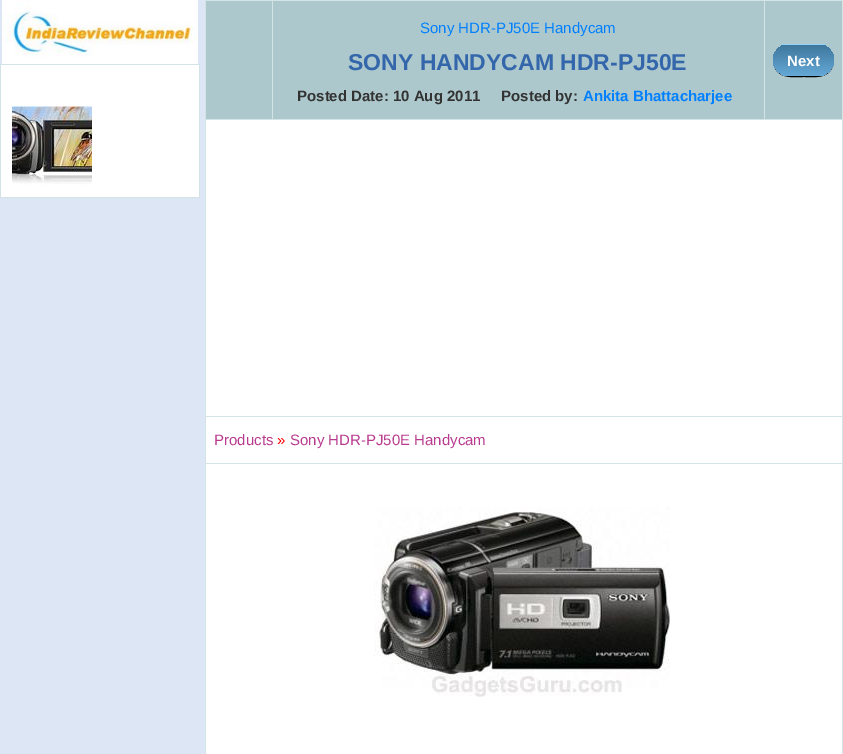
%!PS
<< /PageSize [843 754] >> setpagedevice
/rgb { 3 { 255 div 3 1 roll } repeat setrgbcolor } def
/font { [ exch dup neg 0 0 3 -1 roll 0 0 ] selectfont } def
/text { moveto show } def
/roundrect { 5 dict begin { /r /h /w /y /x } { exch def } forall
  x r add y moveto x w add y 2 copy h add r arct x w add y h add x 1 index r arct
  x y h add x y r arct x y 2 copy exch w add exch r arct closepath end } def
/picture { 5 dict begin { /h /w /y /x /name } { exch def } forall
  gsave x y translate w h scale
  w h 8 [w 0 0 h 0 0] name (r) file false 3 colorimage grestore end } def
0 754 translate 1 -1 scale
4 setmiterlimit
220 230 244 rgb
0 0 843 754 rectfill
(img_01.rgb) 2 0 196 64 picture
255 255 255 rgb
1 65 198 132 rectfill
212 227 229 rgb
0 64 200 1 rectfill
199 64 1 134 rectfill
0 197 200 1 rectfill
0 64 1 134 rectfill
(img_02.rgb) 12 106 80 80 picture
172 200 204 rgb
206 1 66 118 rectfill
212 227 229 rgb
764 0 79 1 rectfill
205 119 638 1 rectfill
764 0 1 120 rectfill
272 0 493 1 rectfill
272 0 1 120 rectfill
205 0 68 1 rectfill
205 416 638 1 rectfill
205 463 638 1 rectfill
205 463 1 291 rectfill
205 416 1 48 rectfill
205 119 1 298 rectfill
205 0 1 120 rectfill
172 200 204 rgb
273 1 491 118 rectfill
765 1 77 118 rectfill
212 227 229 rgb
842 463 1 291 rectfill
842 416 1 48 rectfill
842 119 1 298 rectfill
842 0 1 120 rectfill
0 0 0 rgb
773 60 moveto 0 4 1 7 3 10 rcurveto 6 9 18 7 28 7 rcurveto 9 0 21 2 27 -7 rcurveto 2 -3 3 -6 3 -10 rcurveto 0 9 -7 16 -16 16 rcurveto -29 0 rlineto -9 0 -16 -7 -16 -16 rcurveto closepath fill
gsave
773 44 61 32 16 roundrect clip newpath
gsave 773 45 moveto 61 0 rlineto 0 15 rlineto 0 9 -7 16 -16 16 rcurveto -29 0 rlineto -9 0 -16 -7 -16 -16 rcurveto closepath clip newpath
<< /ShadingType 2 /ColorSpace /DeviceRGB /Coords [804 45 804 76] /Extend [true true] /Function << /FunctionType 2 /Domain [0 1] /C0 [0.243 0.467 0.616] /C1 [0.396 0.663 0.843] /N 1 >> >> shfill grestore
grestore
150 209 248 rgb
781 44 45 1 rectfill
255 255 255 rgb
206 120 636 296 rectfill
206 417 636 46 rectfill
206 464 636 290 rectfill
(img_03.rgb) 374 507 296 190 picture
/LiberationSans-Regular 15 font
0 128 255 rgb
(Sony HDR-PJ50E Handycam) 420 33 text
/LiberationSans-Bold 23 font
51 102 170 rgb
(SONY HANDYCAM HDR-PJ50E) 348 70 text
/LiberationSans-Bold 15 font
51 51 51 rgb
(Posted Date: 10 Aug 2011     Posted by:) 297 101 text
0 128 255 rgb
(Ankita Bhattacharjee) 583 101 text
255 255 255 rgb
(Next) 787 66 text
/LiberationSans-Regular 15 font
185 59 143 rgb
(Products) 214 445 text
255 0 0 rgb
(») 277 445 text
185 59 143 rgb
(Sony HDR-PJ50E Handycam) 290 445 text
showpage
